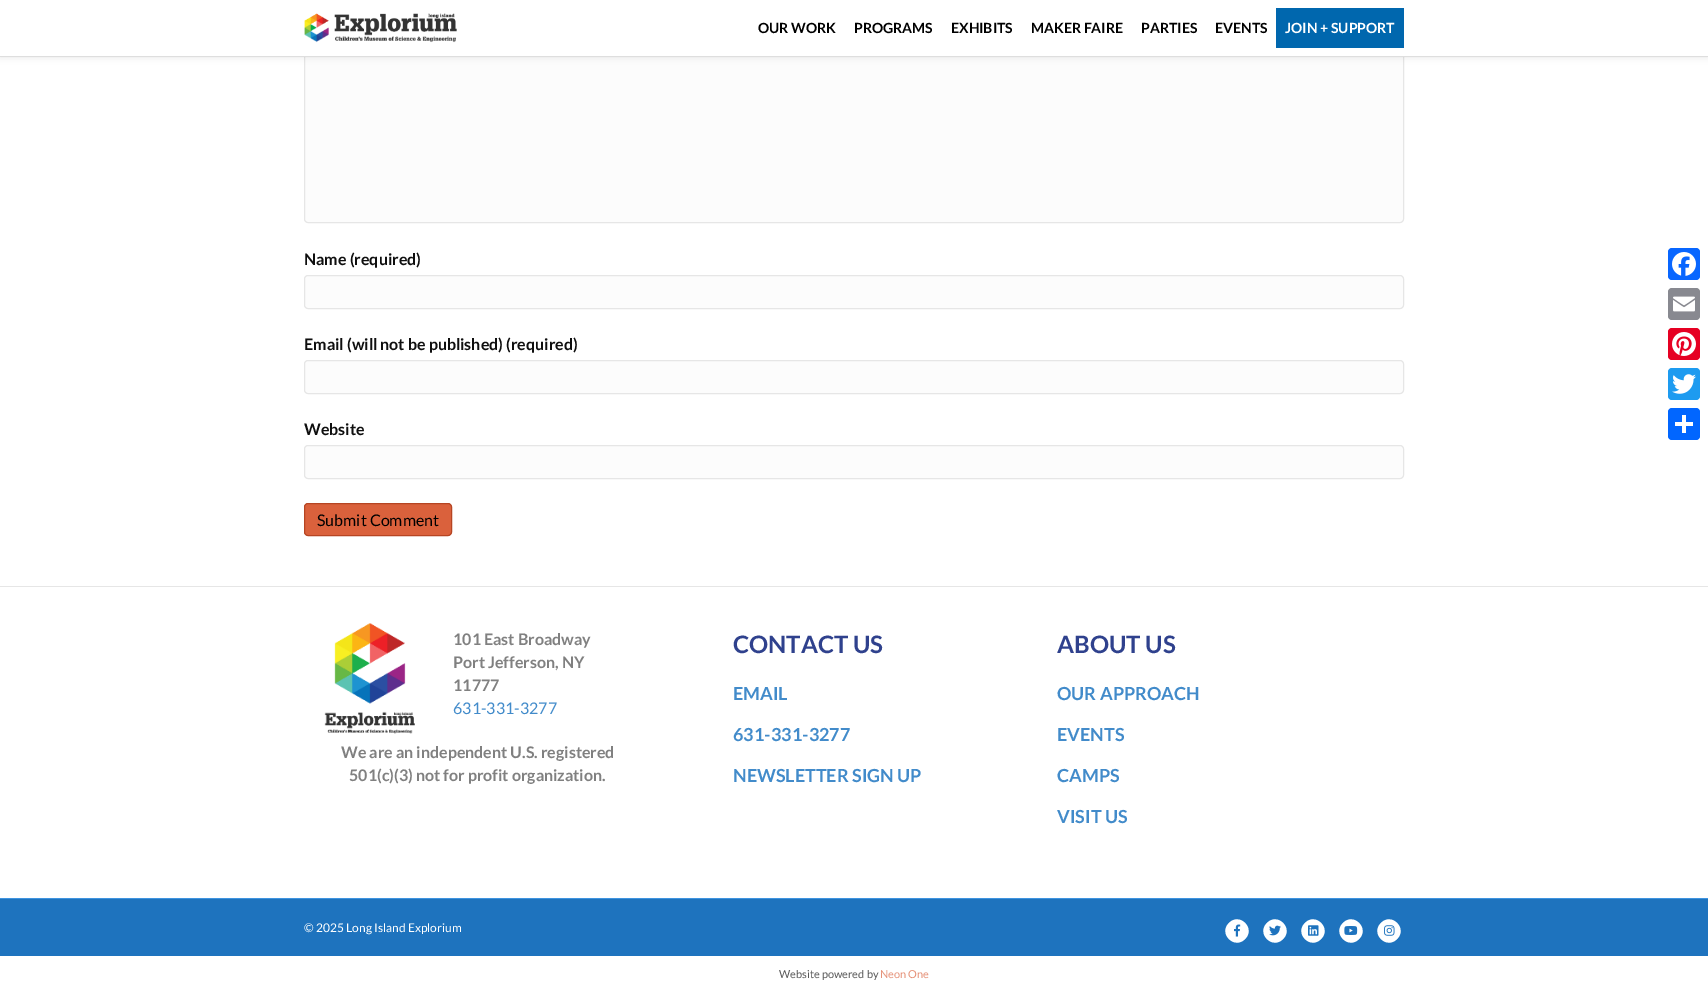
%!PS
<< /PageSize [1708 992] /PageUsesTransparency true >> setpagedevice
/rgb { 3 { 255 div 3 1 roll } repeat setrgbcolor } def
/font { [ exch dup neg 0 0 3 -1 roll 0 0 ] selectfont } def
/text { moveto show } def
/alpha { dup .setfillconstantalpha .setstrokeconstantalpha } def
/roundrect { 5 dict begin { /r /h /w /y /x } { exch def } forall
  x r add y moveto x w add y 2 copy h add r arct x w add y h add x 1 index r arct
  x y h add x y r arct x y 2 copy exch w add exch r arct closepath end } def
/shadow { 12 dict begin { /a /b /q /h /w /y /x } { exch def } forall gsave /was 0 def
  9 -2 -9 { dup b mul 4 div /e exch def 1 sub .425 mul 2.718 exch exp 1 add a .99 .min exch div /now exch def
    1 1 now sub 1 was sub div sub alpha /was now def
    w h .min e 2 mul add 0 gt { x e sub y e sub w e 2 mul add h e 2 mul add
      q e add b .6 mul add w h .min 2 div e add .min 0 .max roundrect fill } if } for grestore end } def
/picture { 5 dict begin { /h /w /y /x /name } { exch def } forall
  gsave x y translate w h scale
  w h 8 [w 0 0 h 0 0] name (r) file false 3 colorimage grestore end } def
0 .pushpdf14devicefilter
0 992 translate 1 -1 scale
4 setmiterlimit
255 255 255 rgb
0 0 1708 992 rectfill
252 252 252 rgb
304.5 49.5 1099 173 3.5 roundrect gsave fill grestore
230 230 230 rgb
stroke
0 0 0 rgb
0 0 1708 57 0 3.5 0.1 shadow
255 255 255 rgb
0 0 1708 56 rectfill
222 222 222 rgb
0 56 1708 1 rectfill
(img_01.rgb) 304 13 153 30 picture
0 103 174 rgb
1276 8 128 40 rectfill
252 252 252 rgb
304.5 275.5 1099 33 3.5 roundrect gsave fill grestore
230 230 230 rgb
stroke
252 252 252 rgb
304.5 360.5 1099 33 3.5 roundrect gsave fill grestore
230 230 230 rgb
stroke
252 252 252 rgb
304.5 445.5 1099 33 3.5 roundrect gsave fill grestore
230 230 230 rgb
stroke
218 97 60 rgb
304.5 503.5 147 32 3.5 roundrect gsave fill grestore
182 69 35 rgb
stroke
230 230 230 rgb
0 586 1708 1 rectfill
(img_02.rgb) 324 623 91 111 picture
30 115 190 rgb
0 899 1708 57 rectfill
62 148 224 rgb
0 898 1708 1 rectfill
255 255 255 rgb
1229 923 moveto 10.5 -11 27 5.5 16 16 rcurveto -10.5 11 -27 -5.5 -16 -16 rcurveto closepath fill
(img_03.rgb) 1234 924 7 13 picture
1267 923 moveto 10.5 -11 27 5.5 16 16 rcurveto -10.5 11 -27 -5.5 -16 -16 rcurveto closepath fill
(img_04.rgb) 1269 925 12 11 picture
1305 923 moveto 10.5 -11 27 5.5 16 16 rcurveto -10.5 11 -27 -5.5 -16 -16 rcurveto closepath fill
(img_05.rgb) 1308 925 11 11 picture
1343 923 moveto 10.5 -11 27 5.5 16 16 rcurveto -10.5 11 -27 -5.5 -16 -16 rcurveto closepath fill
(img_06.rgb) 1344 926 14 9 picture
1381 923 moveto 10.5 -11 27 5.5 16 16 rcurveto -10.5 11 -27 -5.5 -16 -16 rcurveto closepath fill
(img_07.rgb) 1384 925 11 11 picture
8 102 255 rgb
1668 248 32 32 4 roundrect fill
(img_08.rgb) 1672 252 24 24 picture
136 137 144 rgb
1668 288 32 32 4 roundrect fill
(img_09.rgb) 1673 296 22 16 picture
230 0 35 rgb
1668 328 32 32 4 roundrect fill
(img_10.rgb) 1672 332 24 24 picture
29 155 240 rgb
1668 368 32 32 4 roundrect fill
(img_11.rgb) 1672 374 24 20 picture
1 102 255 rgb
1668 408 32 32 4 roundrect fill
255 255 255 rgb
1682 415 4 18 rectfill
1675 422 18 4 rectfill
/Lato-Bold 14 font
0 0 0 rgb
(OUR WORK) 758 33 text
(PROGRAMS) 854 33 text
(EXHIBITS) 951 33 text
(MAKER FAIRE) 1031 33 text
(PARTIES) 1141 33 text
(EVENTS) 1215 33 text
255 255 255 rgb
(JOIN + SUPPORT) 1285 33 text
/Lato-Bold 16 font
15 15 15 rgb
(Name \(required\)) 304 265 text
(Email \(will not be published\) \(required\)) 304 350 text
(Website) 304 435 text
/Lato-Regular 16 font
0 0 0 rgb
(Submit Comment) 317 526 text
/Lato-Bold 16 font
128 128 128 rgb
(101 East Broadway) 453 645 text
(Port Jefferson, NY) 453 668 text
(11777) 453 691 text
/Lato-Regular 16 font
66 139 202 rgb
(631-331-3277) 453 714 text
/Lato-Bold 16 font
128 128 128 rgb
(We are an independent U.S. registered) 341 758 text
(501\(c\)\(3\) not for profit organization.) 349 781 text
/Lato-Bold 24 font
47 65 141 rgb
(CONTACT US) 733 653 text
/Lato-Bold 18 font
66 139 202 rgb
(EMAIL) 733 700 text
(631-331-3277) 733 741 text
(NEWSLETTER SIGN UP) 733 782 text
/Lato-Bold 24 font
47 65 141 rgb
(ABOUT US) 1057 653 text
/Lato-Bold 18 font
66 139 202 rgb
(OUR APPROACH) 1057 700 text
(EVENTS) 1057 741 text
(CAMPS) 1057 782 text
(VISIT US) 1057 823 text
/Lato-Regular 12 font
255 255 255 rgb
(© 2025 Long Island Explorium) 304 932 text
/Lato-Regular 11 font
87 87 87 rgb
(Website powered by) 779 978 text
229 144 119 rgb
(Neon One) 880 978 text
.poppdf14devicefilter showpage
